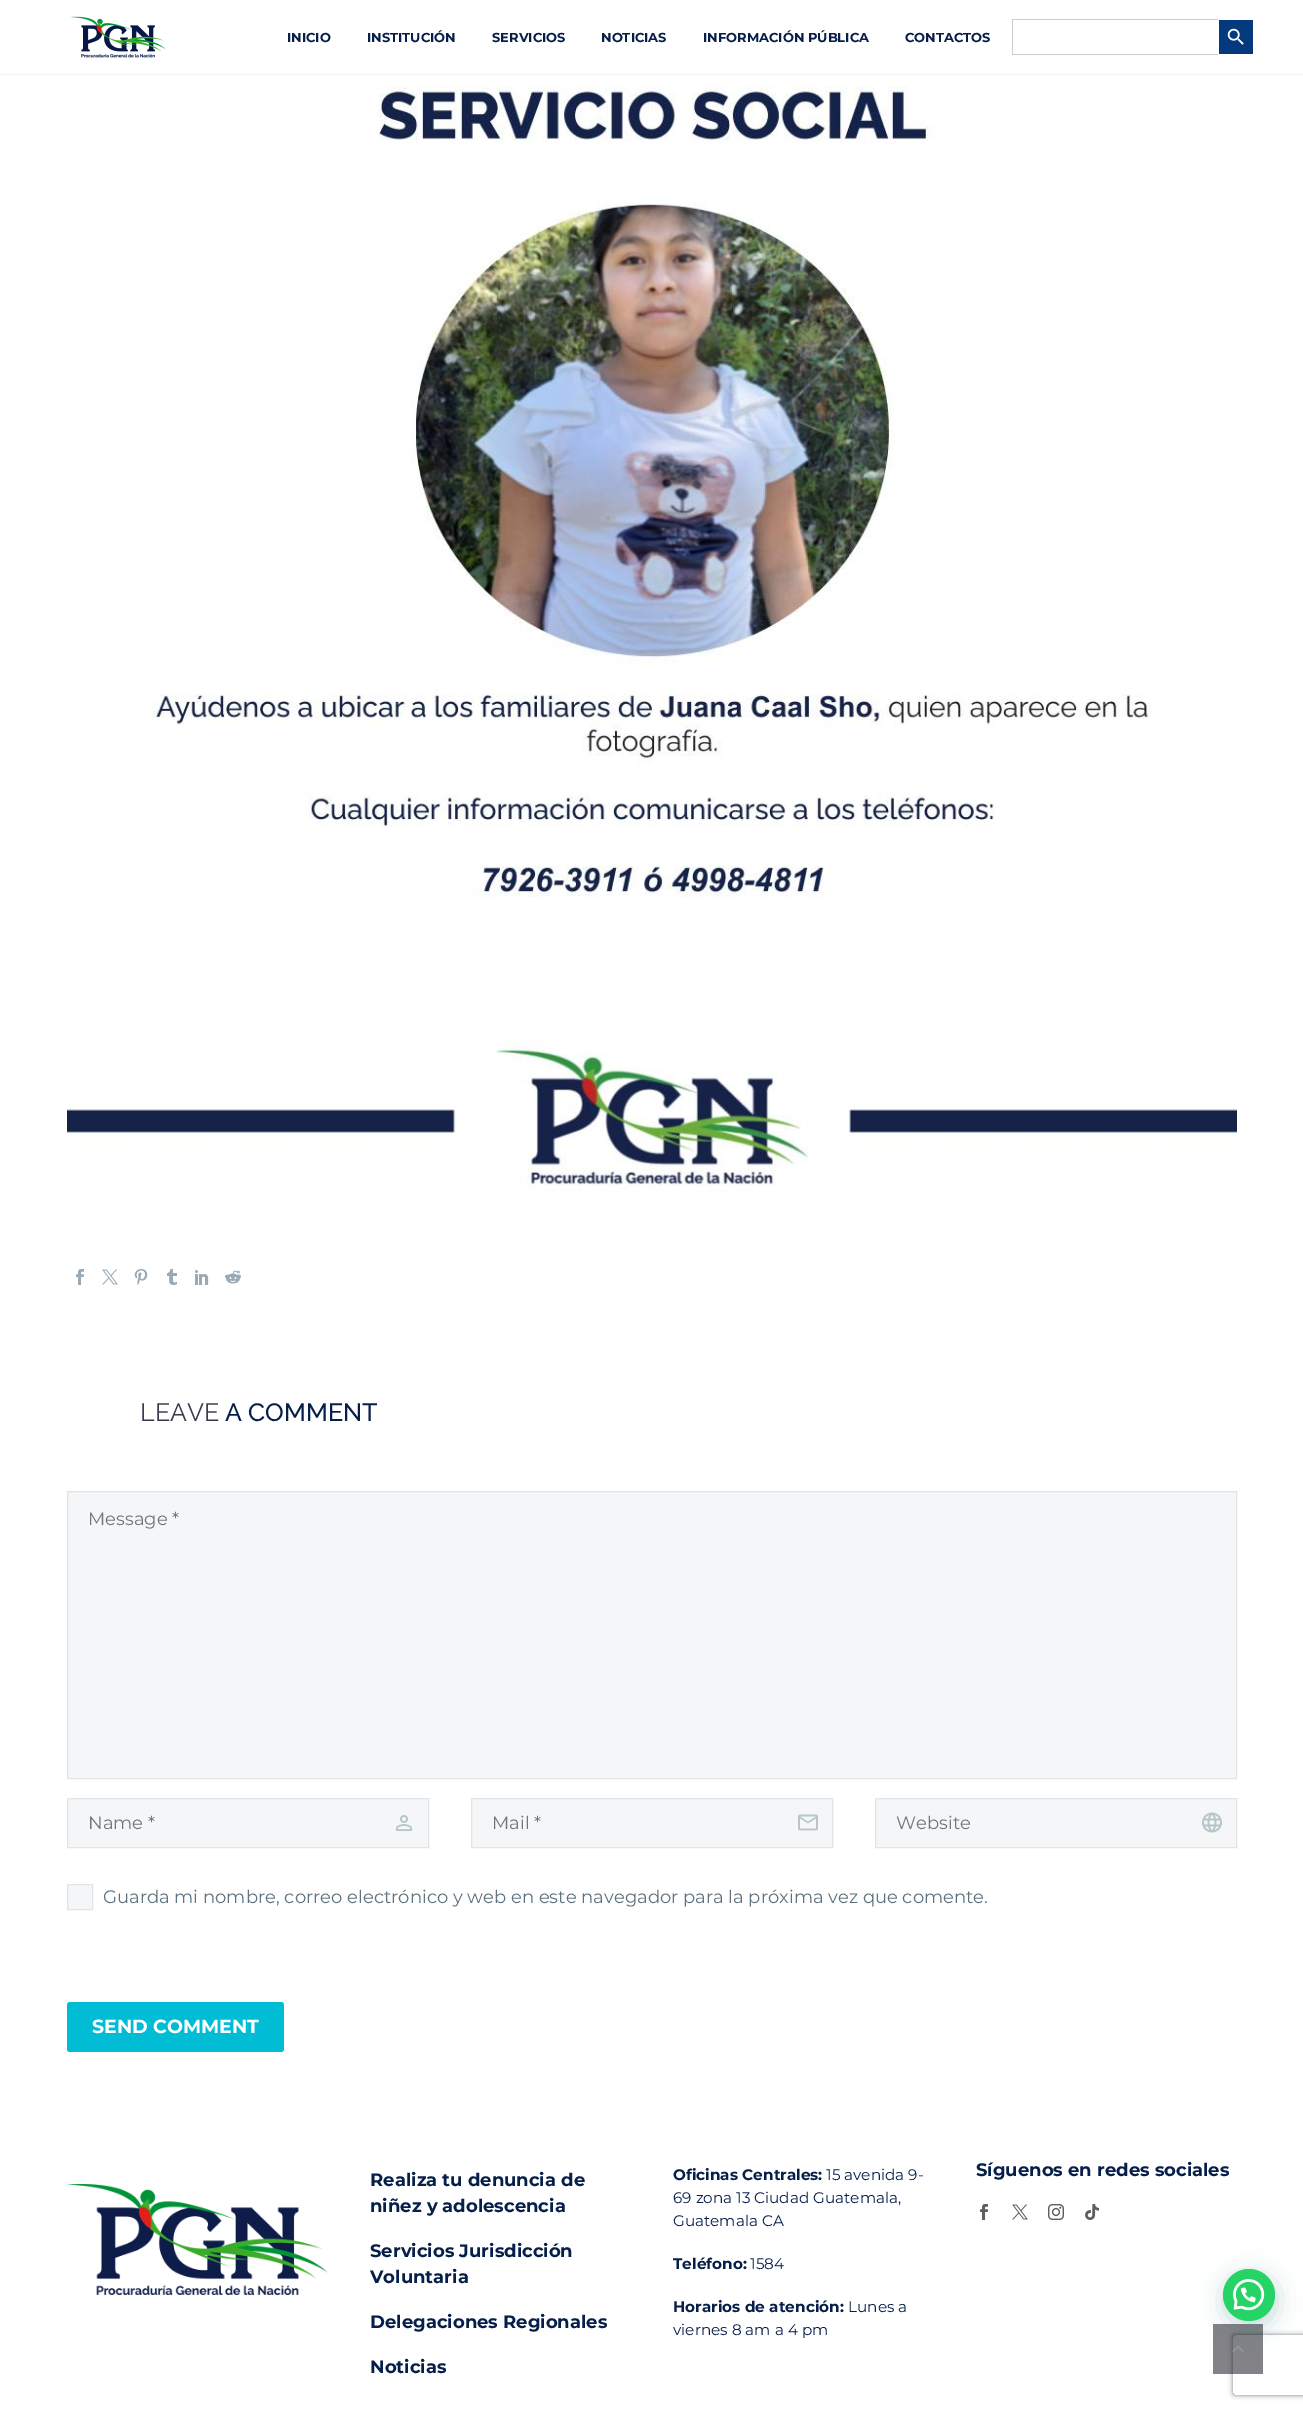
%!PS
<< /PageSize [1303 2409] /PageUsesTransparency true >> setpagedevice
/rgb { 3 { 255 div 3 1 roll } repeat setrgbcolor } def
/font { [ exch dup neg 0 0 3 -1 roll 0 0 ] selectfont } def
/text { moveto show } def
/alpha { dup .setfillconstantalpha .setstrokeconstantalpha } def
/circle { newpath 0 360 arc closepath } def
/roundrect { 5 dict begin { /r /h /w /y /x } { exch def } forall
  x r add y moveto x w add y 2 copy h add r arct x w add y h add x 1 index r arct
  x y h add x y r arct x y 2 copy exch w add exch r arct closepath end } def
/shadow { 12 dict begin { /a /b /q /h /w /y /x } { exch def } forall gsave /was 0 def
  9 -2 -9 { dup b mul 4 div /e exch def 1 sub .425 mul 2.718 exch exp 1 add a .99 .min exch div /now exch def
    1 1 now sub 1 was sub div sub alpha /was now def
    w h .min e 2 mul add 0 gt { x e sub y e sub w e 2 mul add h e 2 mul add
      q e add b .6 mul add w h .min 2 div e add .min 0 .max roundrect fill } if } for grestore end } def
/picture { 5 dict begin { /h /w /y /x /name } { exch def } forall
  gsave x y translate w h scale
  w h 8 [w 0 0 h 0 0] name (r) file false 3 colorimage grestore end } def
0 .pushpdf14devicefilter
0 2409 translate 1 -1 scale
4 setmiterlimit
255 255 255 rgb
0 0 1303 2409 rectfill
gsave
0 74 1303 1 rectclip
56 69 84 rgb
0 0 1303 74 0 1 0.2 shadow
grestore
(img_01.rgb) 70 16 96 42 picture
204 204 204 rgb
1012 19 206 1 rectfill
1012 54 206 1 rectfill
1012 19 1 36 rectfill
5 57 126 rgb
1219 20 34 34 rectfill
(img_02.rgb) 1227 28 17 17 picture
(img_03.rgb) 67 85 1170 1108 picture
(img_04.rgb) 76 1269 8 16 picture
(img_05.rgb) 102 1269 16 16 picture
(img_06.rgb) 134 1269 14 16 picture
(img_07.rgb) 167 1269 10 16 picture
(img_08.rgb) 195 1270 14 15 picture
(img_09.rgb) 225 1270 16 14 picture
244 246 247 rgb
67.5 1491.5 moveto 1169 0 rlineto 0 287 rlineto -1169 0 rlineto closepath gsave fill grestore
223 229 232 rgb
stroke
244 246 247 rgb
67.5 1798.5 moveto 361 0 rlineto 0 49 rlineto -361 0 rlineto closepath gsave fill grestore
223 229 232 rgb
stroke
(img_10.rgb) 396 1815 16 16 picture
244 246 247 rgb
471.5 1798.5 moveto 361 0 rlineto 0 49 rlineto -361 0 rlineto closepath gsave fill grestore
223 229 232 rgb
stroke
(img_11.rgb) 798 1814 20 17 picture
244 246 247 rgb
875.5 1798.5 moveto 361 0 rlineto 0 49 rlineto -361 0 rlineto closepath gsave fill grestore
223 229 232 rgb
stroke
(img_12.rgb) 1202 1812 20 21 picture
244 246 247 rgb
67.5 1884.5 moveto 25 0 rlineto 0 25 rlineto -25 0 rlineto closepath gsave fill grestore
223 229 232 rgb
stroke
0 188 212 rgb
67 2002 217 50 3 roundrect fill
(img_13.rgb) 67 2184 261 111 picture
(img_14.rgb) 980 2204 8 16 picture
(img_15.rgb) 1012 2204 16 16 picture
(img_16.rgb) 1048 2204 16 16 picture
(img_17.rgb) 1085 2204 14 16 picture
gsave
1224 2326 moveto 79 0 rlineto 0 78 rlineto -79 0 rlineto closepath 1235 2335 moveto 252 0 rlineto 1 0 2 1 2 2 rcurveto 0 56 rlineto 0 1 -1 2 -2 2 rcurveto -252 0 rlineto -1 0 -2 -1 -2 -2 rcurveto 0 -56 rlineto 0 -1 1 -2 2 -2 rcurveto closepath eoclip newpath
128 128 128 rgb
1233 2335 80 60 2 2.5 1 shadow
grestore
0.5 alpha
6 6 15 rgb
1213 2324 50 50 rectfill
1 alpha
(img_18.rgb) 1232 2345 12 7 picture
7 94 84 rgb
1224 2275 52 52 26 12 0.24 shadow
37 211 102 rgb
1249 2295 26 circle fill
(img_19.rgb) 1233 2279 32 32 picture
/Montserrat-Bold 13 font
6 30 74 rgb
(INICIO) 287 42 text
(INSTITUCIÓN) 367 42 text
(SERVICIOS) 492 42 text
(NOTICIAS) 601 42 text
(INFORMACIÓN PÚBLICA) 703 42 text
(CONTACTOS) 905 42 text
/Raleway-Regular 25 font
60 57 80 rgb
(LEAVE) 140 1421 text
/Raleway-Medium 25 font
6 30 74 rgb
(A COMMENT) 225 1421 text
/Montserrat-Regular 18 font
117 117 117 rgb
(Message *) 88 1525 text
(Name *) 88 1829 text
(Mail *) 492 1829 text
(Website) 896 1829 text
95 114 127 rgb
(Guarda mi nombre, correo electrónico y web en este navegador para la próxima vez que comente.) 103 1903 text
/Montserrat-Bold 19 font
255 255 255 rgb
(SEND COMMENT) 92 2033 text
/Montserrat-Bold 18 font
6 30 74 rgb
(Realiza tu denuncia de) 370 2186 text
(niñez y adolescencia) 370 2212 text
(Servicios Jurisdicción) 370 2257 text
(Voluntaria) 370 2283 text
(Delegaciones Regionales) 370 2328 text
(Noticias) 370 2373 text
/Montserrat-Bold 15.25 font
(Oficinas Centrales:) 673 2180 text
/Montserrat-Regular 15.25 font
(15 avenida 9-) 826 2180 text
(69 zona 13 Ciudad Guatemala,) 673 2203 text
(Guatemala CA) 673 2226 text
/Montserrat-Bold 15.25 font
(Teléfono:) 673 2269 text
/Montserrat-Regular 15.25 font
(1584) 750 2269 text
/Montserrat-Bold 15.25 font
(Horarios de atención:) 673 2312 text
/Montserrat-Regular 15.25 font
(Lunes a) 848 2312 text
(viernes 8 am a 4 pm) 673 2335 text
/Montserrat-Bold 18 font
(Síguenos en redes sociales) 976 2176 text
.poppdf14devicefilter showpage
